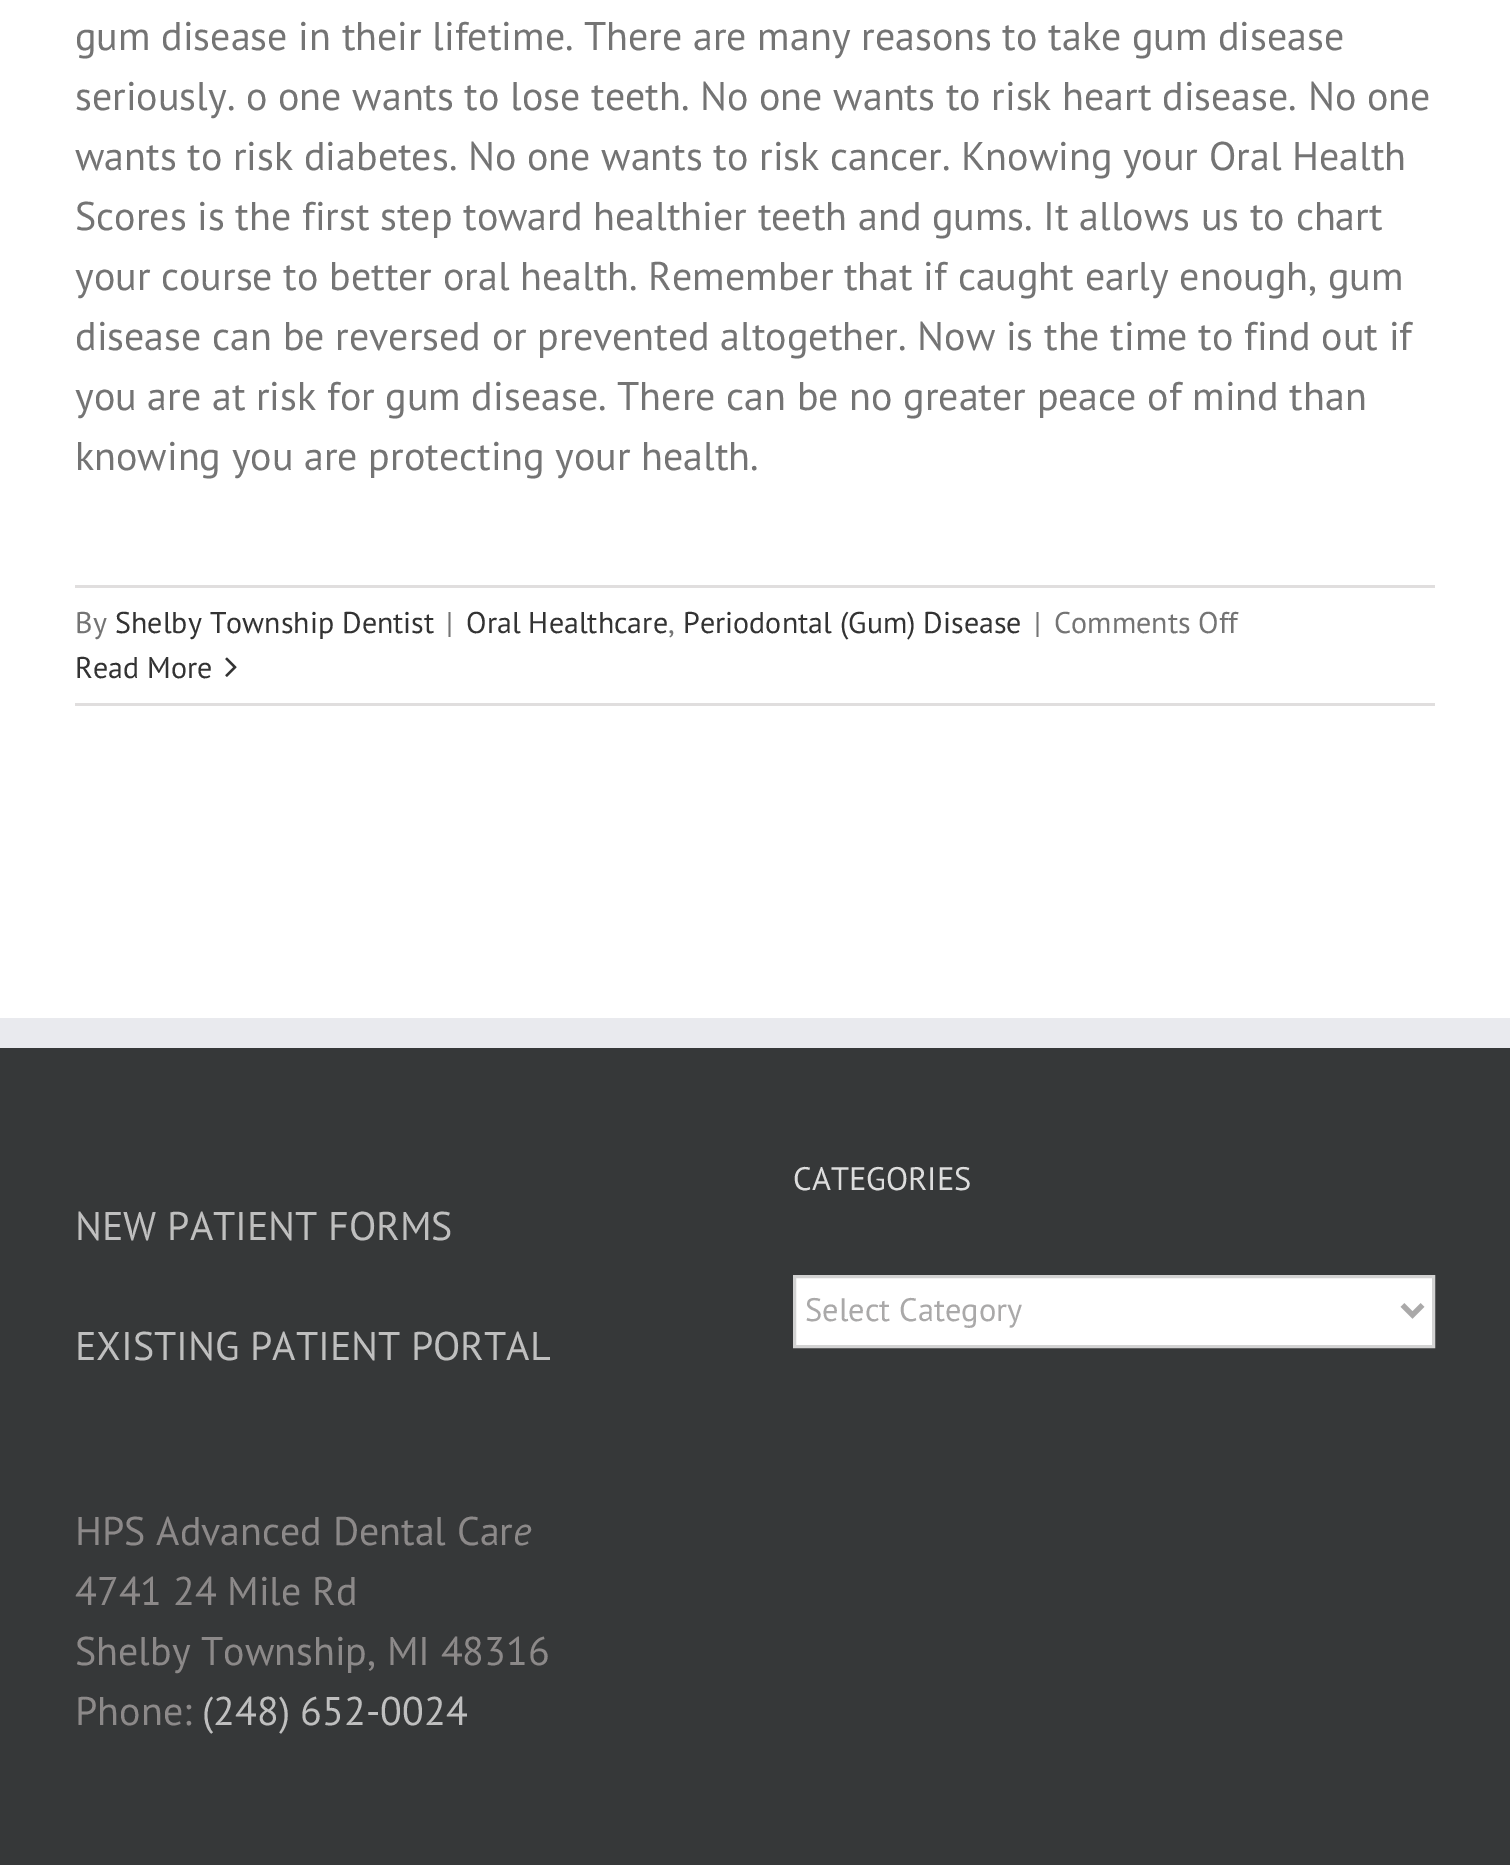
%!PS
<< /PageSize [1510 1865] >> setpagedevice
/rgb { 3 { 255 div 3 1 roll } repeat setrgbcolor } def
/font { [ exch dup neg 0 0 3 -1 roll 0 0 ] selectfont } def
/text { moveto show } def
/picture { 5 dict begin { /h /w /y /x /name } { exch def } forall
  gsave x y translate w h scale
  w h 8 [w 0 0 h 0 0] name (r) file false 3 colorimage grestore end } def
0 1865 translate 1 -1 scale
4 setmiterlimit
255 255 255 rgb
0 0 1510 1865 rectfill
224 222 222 rgb
75 585 1360 3 rectfill
75 703 1360 3 rectfill
(img_01.rgb) 225 657 12 20 picture
54 56 57 rgb
0 1048 1510 817 rectfill
233 234 238 rgb
0 1018 1510 30 rectfill
255 255 255 rgb
794.5 1276.5 moveto 639 0 rlineto 0 70 rlineto -639 0 rlineto closepath gsave fill grestore
210 210 210 rgb
3 setlinewidth
stroke
170 169 169 rgb
5 setlinewidth
1402.5 1305 moveto 10 10 rlineto 10 -10 rlineto stroke
/PTSans-Regular 40 font
116 116 116 rgb
(gum disease in their lifetime. There are many reasons to take gum disease) 75 50 text
(seriously. o one wants to lose teeth. No one wants to risk heart disease. No one) 75 110 text
(wants to risk diabetes. No one wants to risk cancer. Knowing your Oral Health) 75 170 text
(Scores is the first step toward healthier teeth and gums. It allows us to chart) 75 230 text
(your course to better oral health. Remember that if caught early enough, gum) 75 290 text
(disease can be reversed or prevented altogether. Now is the time to find out if) 75 350 text
(you are at risk for gum disease. There can be no greater peace of mind than) 75 410 text
(knowing you are protecting your health.) 75 470 text
/PTSans-Regular 30 font
(By) 75 633 text
51 51 51 rgb
(Shelby Township Dentist) 115 633 text
116 116 116 rgb
(|) 446 633 text
51 51 51 rgb
(Oral Healthcare) 466 633 text
116 116 116 rgb
(,) 668 633 text
51 51 51 rgb
(Periodontal \(Gum\) Disease) 683 633 text
116 116 116 rgb
(|) 1034 633 text
(Comments Off) 1054 633 text
51 51 51 rgb
(Read More) 75 678 text
/PTSans-Regular 40 font
191 191 191 rgb
(NEW PATIENT FORMS) 75 1240 text
(EXISTING PATIENT PORTAL) 75 1360 text
140 137 137 rgb
(HPS Advanced Dental Car) 75 1545 text
/PTSans-Italic 40 font
(e) 513 1545 text
/PTSans-Regular 40 font
(4741 24 Mile Rd) 75 1605 text
(Shelby Township, MI 48316) 75 1665 text
(Phone:) 75 1725 text
191 191 191 rgb
(\(248\) 652-0024) 202 1725 text
/PTSans-Regular 32.5 font
221 221 221 rgb
(CATEGORIES) 793 1190 text
170 169 169 rgb
(Select Category) 805 1321 text
showpage
